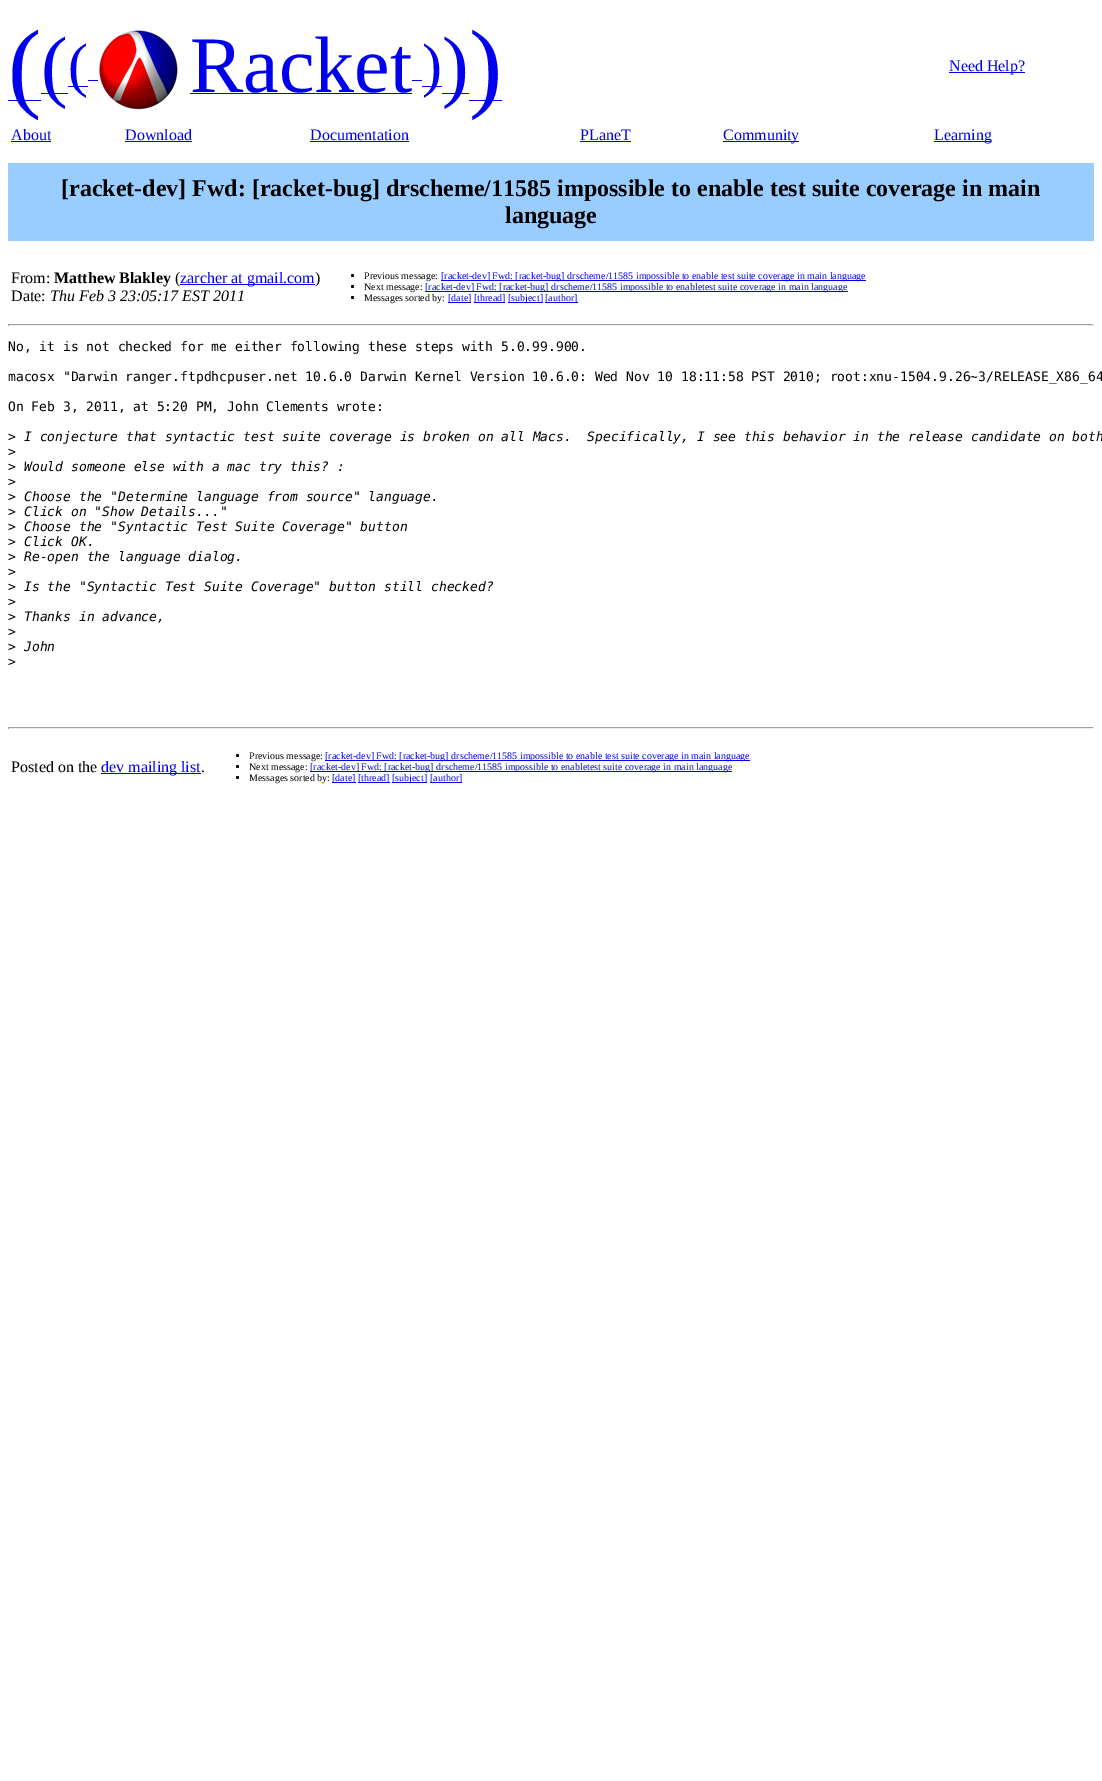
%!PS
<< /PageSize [1102 1781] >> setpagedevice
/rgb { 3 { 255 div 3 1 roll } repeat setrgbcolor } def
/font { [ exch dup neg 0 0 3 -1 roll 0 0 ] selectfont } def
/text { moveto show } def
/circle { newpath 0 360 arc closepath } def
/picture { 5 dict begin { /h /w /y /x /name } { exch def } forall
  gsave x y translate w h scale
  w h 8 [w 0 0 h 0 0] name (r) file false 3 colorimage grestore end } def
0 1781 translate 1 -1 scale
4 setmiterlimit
255 255 255 rgb
0 0 1102 1781 rectfill
0 0 238 rgb
8 100 33 1 rectfill
41 93 27 1 rectfill
68 86 20 1 rectfill
88 80 10 1 rectfill
(img_01.rgb) 99 30 79 80 picture
190 93 222 1 rectfill
412 80 10 1 rectfill
422 86 20 1 rectfill
442 93 27 1 rectfill
469 100 33 1 rectfill
949 72 76 1 rectfill
11 141 40 1 rectfill
125 141 67 1 rectfill
310 141 99 1 rectfill
580 141 51 1 rectfill
723 141 76 1 rectfill
934 141 57 1 rectfill
153 204 255 rgb
8 163 1086 78 rectfill
0 0 238 rgb
180 284 135 1 rectfill
0 0 0 rgb
352.5 275.5 1.5 circle fill
0 0 238 rgb
441 280 425 1 rectfill
0 0 0 rgb
352.5 286.5 1.5 circle fill
0 0 238 rgb
425 291 423 1 rectfill
0 0 0 rgb
352.5 297.5 1.5 circle fill
0 0 238 rgb
448 302 23 1 rectfill
474 302 31 1 rectfill
508 302 35 1 rectfill
545 302 33 1 rectfill
159 159 159 rgb
8 324 1086 1 rectfill
238 238 238 rgb
1093 324 1 2 rectfill
8 325 1086 1 rectfill
159 159 159 rgb
8 324 1 2 rectfill
8 727 1086 1 rectfill
238 238 238 rgb
1093 727 1 2 rectfill
8 728 1086 1 rectfill
159 159 159 rgb
8 727 1 2 rectfill
0 0 238 rgb
101 773 100 1 rectfill
0 0 0 rgb
237.5 755.5 1.5 circle fill
0 0 238 rgb
325 760 425 1 rectfill
0 0 0 rgb
237.5 766.5 1.5 circle fill
0 0 238 rgb
310 771 422 1 rectfill
0 0 0 rgb
237.5 777.5 1.5 circle fill
0 0 238 rgb
332 782 24 1 rectfill
358 782 32 1 rectfill
392 782 35 1 rectfill
430 782 32 1 rectfill
/LiberationSerif-Regular 100 font
(\() 8 99 text
/LiberationSerif-Regular 80 font
(\() 41 92 text
/LiberationSerif-Regular 60 font
(\() 68 85 text
/LiberationSerif-Regular 80 font
(Racket) 190 92 text
/LiberationSerif-Regular 60 font
(\)) 422 85 text
/LiberationSerif-Regular 80 font
(\)) 442 92 text
/LiberationSerif-Regular 100 font
(\)) 469 99 text
/LiberationSerif-Regular 16 font
(Need Help?) 949 71 text
(About) 11 140 text
(Download) 125 140 text
(Documentation) 310 140 text
(PLaneT) 580 140 text
(Community) 723 140 text
(Learning) 934 140 text
/LiberationSerif-Bold 24 font
0 0 0 rgb
([racket-dev] Fwd: [racket-bug] drscheme/11585 impossible to enable test suite coverage in main) 61 196 text
(language) 505 223 text
/LiberationSerif-Regular 16 font
(From:) 11 283 text
/LiberationSerif-Bold 16 font
(Matthew Blakley) 54 283 text
/LiberationSerif-Regular 16 font
(\() 175 283 text
0 0 238 rgb
(zarcher at gmail.com) 180 283 text
0 0 0 rgb
(\)) 315 283 text
(Date:) 11 301 text
/LiberationSerif-Italic 16 font
(Thu Feb 3 23:05:17 EST 2011) 50 301 text
/LiberationSerif-Regular 10 font
(Previous message:) 364 279 text
0 0 238 rgb
([racket-dev] Fwd: [racket-bug] drscheme/11585 impossible to enable test suite coverage in main language) 441 279 text
0 0 0 rgb
(Next message:) 364 290 text
0 0 238 rgb
([racket-dev] Fwd: [racket-bug] drscheme/11585 impossible to enabletest suite coverage in main language) 425 290 text
0 0 0 rgb
(Messages sorted by:) 364 301 text
0 0 238 rgb
([date]) 448 301 text
([thread]) 474 301 text
([subject]) 508 301 text
([author]) 545 301 text
/DejaVuSansMono-Regular 13 font
0 0 0 rgb
(No, it is not checked for me either following these steps with 5.0.99.900.) 8 351 text
(macosx "Darwin ranger.ftpdhcpuser.net 10.6.0 Darwin Kernel Version 10.6.0: Wed Nov 10 18:11:58 PST 2010; root:xnu-1504.9.26~3/RELEASE_X86_64) 8 381 text
(On Feb 3, 2011, at 5:20 PM, John Clements wrote:) 8 411 text
(>) 8 441 text
/DejaVuSansMono-Italic 13 font
(I conjecture that syntactic test suite coverage is broken on all Macs.  Specifically, I see this behavior in the release candidate on both) 24 441 text
/DejaVuSansMono-Regular 13 font
(>) 8 456 text
(>) 8 471 text
/DejaVuSansMono-Italic 13 font
(Would someone else with a mac try this? :) 24 471 text
/DejaVuSansMono-Regular 13 font
(>) 8 486 text
(>) 8 501 text
/DejaVuSansMono-Italic 13 font
(Choose the "Determine language from source" language.) 24 501 text
/DejaVuSansMono-Regular 13 font
(>) 8 516 text
/DejaVuSansMono-Italic 13 font
(Click on "Show Details...") 24 516 text
/DejaVuSansMono-Regular 13 font
(>) 8 531 text
/DejaVuSansMono-Italic 13 font
(Choose the "Syntactic Test Suite Coverage" button) 24 531 text
/DejaVuSansMono-Regular 13 font
(>) 8 546 text
/DejaVuSansMono-Italic 13 font
(Click OK.) 24 546 text
/DejaVuSansMono-Regular 13 font
(>) 8 561 text
/DejaVuSansMono-Italic 13 font
(Re-open the language dialog.) 24 561 text
/DejaVuSansMono-Regular 13 font
(>) 8 576 text
(>) 8 591 text
/DejaVuSansMono-Italic 13 font
(Is the "Syntactic Test Suite Coverage" button still checked?) 24 591 text
/DejaVuSansMono-Regular 13 font
(>) 8 606 text
(>) 8 621 text
/DejaVuSansMono-Italic 13 font
(Thanks in advance,) 24 621 text
/DejaVuSansMono-Regular 13 font
(>) 8 636 text
(>) 8 651 text
/DejaVuSansMono-Italic 13 font
(John) 24 651 text
/DejaVuSansMono-Regular 13 font
(>) 8 666 text
/LiberationSerif-Regular 16 font
(Posted on the) 11 772 text
0 0 238 rgb
(dev mailing list) 101 772 text
0 0 0 rgb
(.) 201 772 text
/LiberationSerif-Regular 10 font
(Previous message:) 249 759 text
0 0 238 rgb
([racket-dev] Fwd: [racket-bug] drscheme/11585 impossible to enable test suite coverage in main language) 325 759 text
0 0 0 rgb
(Next message:) 249 770 text
0 0 238 rgb
([racket-dev] Fwd: [racket-bug] drscheme/11585 impossible to enabletest suite coverage in main language) 310 770 text
0 0 0 rgb
(Messages sorted by:) 249 781 text
0 0 238 rgb
([date]) 332 781 text
([thread]) 358 781 text
([subject]) 392 781 text
([author]) 430 781 text
showpage
